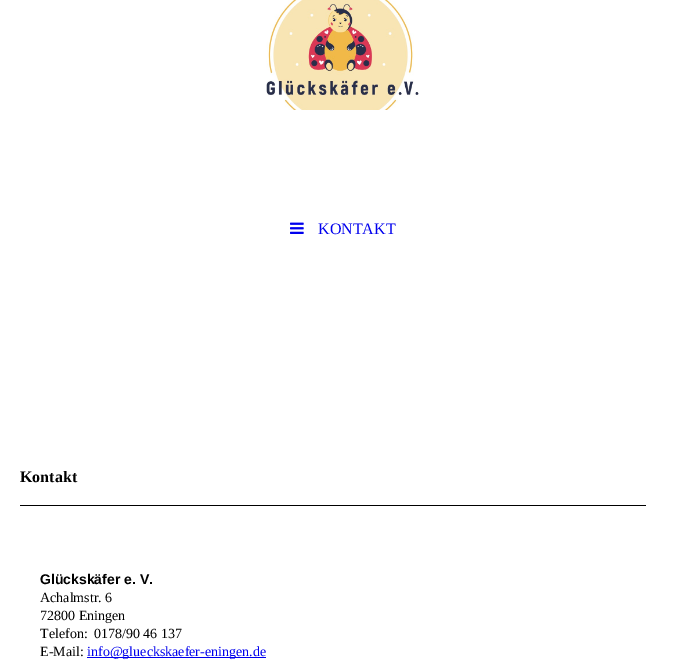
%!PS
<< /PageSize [686 669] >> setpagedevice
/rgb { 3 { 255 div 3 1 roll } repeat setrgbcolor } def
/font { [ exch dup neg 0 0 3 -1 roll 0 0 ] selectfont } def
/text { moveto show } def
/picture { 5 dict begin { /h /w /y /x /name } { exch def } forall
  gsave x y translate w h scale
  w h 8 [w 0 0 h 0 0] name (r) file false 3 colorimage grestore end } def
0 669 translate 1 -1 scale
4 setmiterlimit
255 255 255 rgb
0 0 686 669 rectfill
(img_01.rgb) 266 0 153 110 picture
(img_02.rgb) 290 222 14 12 picture
0 0 0 rgb
20 505 626 1 rectfill
0 0 238 rgb
87 657 179 1 rectfill
/LiberationSerif-Regular 16 font
(KONTAKT) 318 234 text
/LiberationSerif-Bold 16 font
0 0 0 rgb
(Kontakt) 20 482 text
/LiberationSans-Bold 14 font
(Glückskäfer e. V.) 40 584 text
/LiberationSerif-Regular 14 font
(Achalmstr. 6) 40 602 text
(72800 Eningen) 40 620 text
(Telefon:) 40 638 text
(0178/90 46 137) 94 638 text
(E-Mail:) 40 656 text
0 0 238 rgb
(info@glueckskaefer-eningen.de) 87 656 text
showpage
